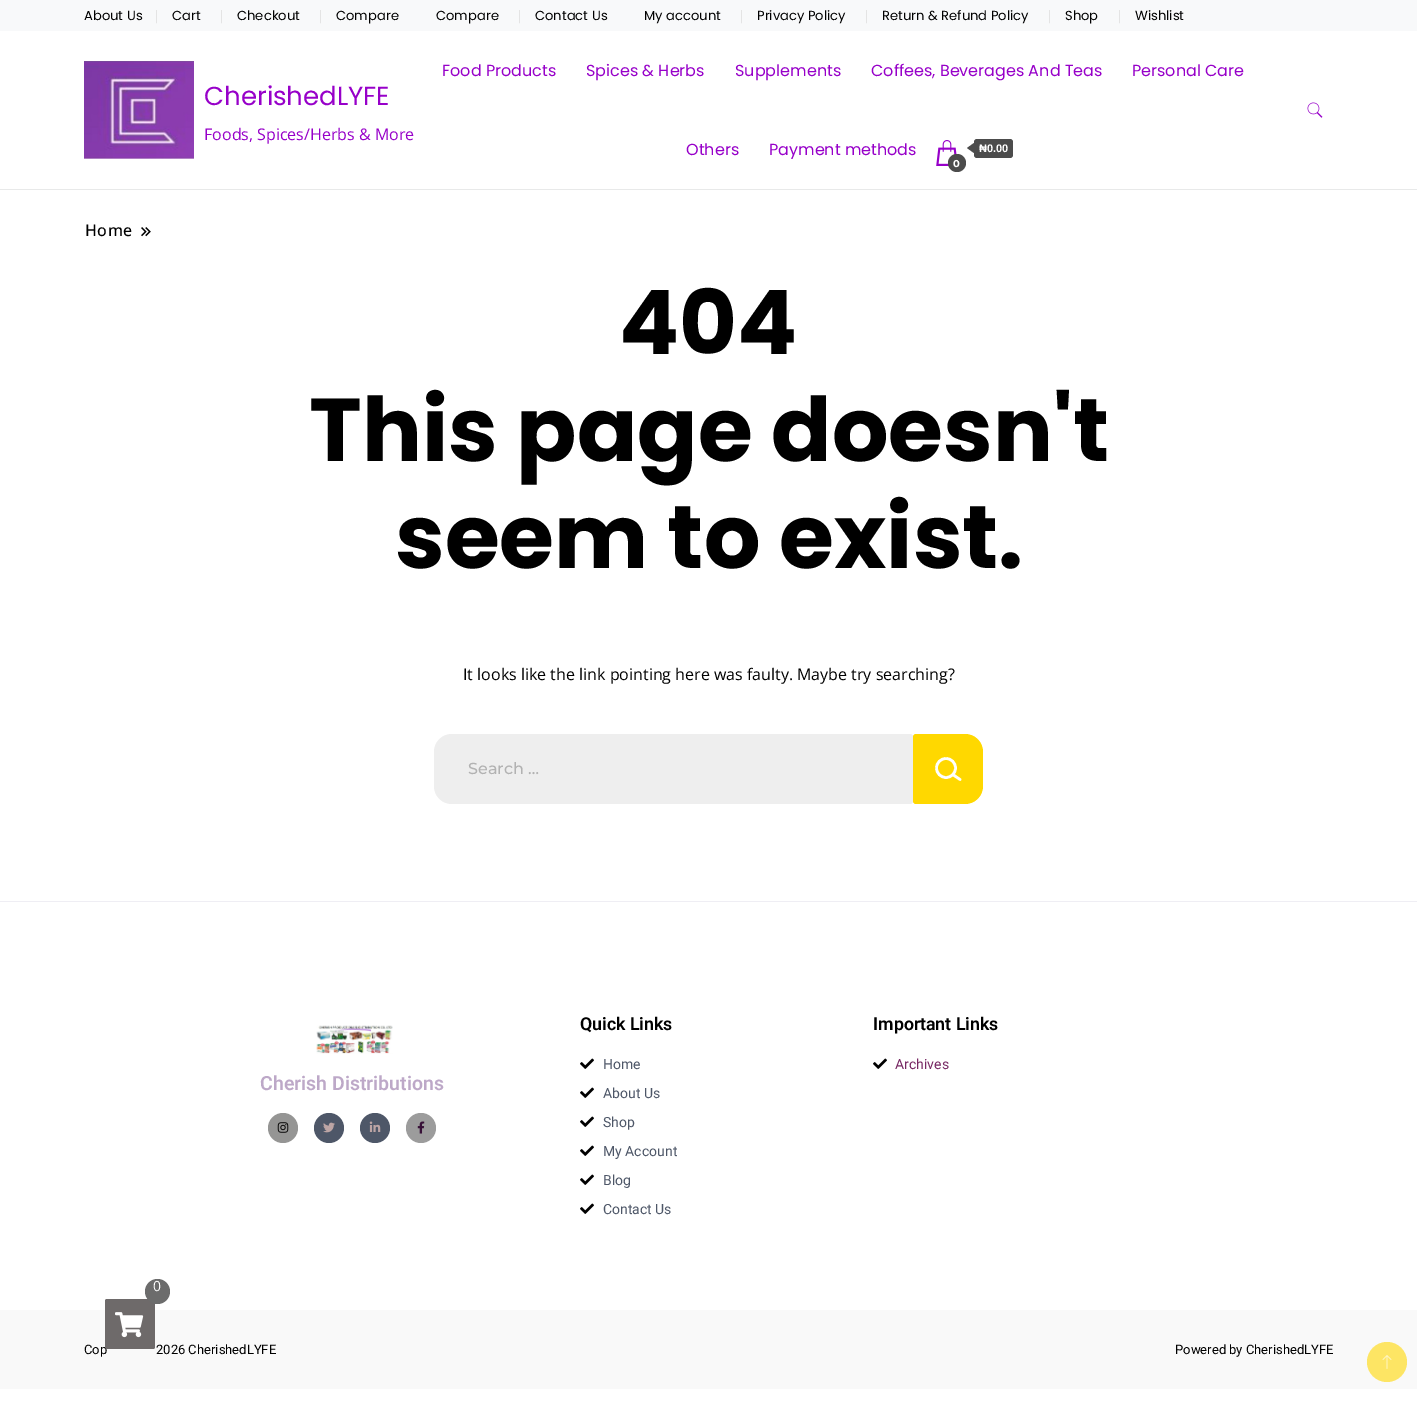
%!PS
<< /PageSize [1417 1407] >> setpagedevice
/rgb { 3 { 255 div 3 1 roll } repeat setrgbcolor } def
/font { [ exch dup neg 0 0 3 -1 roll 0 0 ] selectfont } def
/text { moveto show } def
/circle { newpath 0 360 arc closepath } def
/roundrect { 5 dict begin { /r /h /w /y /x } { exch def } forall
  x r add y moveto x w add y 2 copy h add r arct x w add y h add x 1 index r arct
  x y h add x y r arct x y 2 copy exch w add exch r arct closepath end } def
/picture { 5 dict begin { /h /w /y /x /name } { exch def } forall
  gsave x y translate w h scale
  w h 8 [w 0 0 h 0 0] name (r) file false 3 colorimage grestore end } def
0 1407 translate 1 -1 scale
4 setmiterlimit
255 255 255 rgb
0 0 1417 1407 rectfill
232 233 233 rgb
0 189 1417 1 rectfill
248 249 250 rgb
0 0 1417 31 rectfill
(img_01.rgb) 84 61 110 98 picture
(img_02.rgb) 936 140 21 26 picture
76 76 76 rgb
974 139 39 19 3 roundrect fill
974 143 moveto 0 10 rlineto -7 -5 rlineto closepath fill
957 163 9 circle fill
(img_03.rgb) 1307 102 16 16 picture
(img_04.rgb) 141 227 10 10 picture
238 238 238 rgb
452 734 moveto 458 0 rlineto 1.5 0 3 1.5 3 3 rcurveto 0 64 rlineto 0 1.5 -1.5 3 -3 3 rcurveto -458 0 rlineto -10 0 -18 -8 -18 -18 rcurveto 0 -34 rlineto 0 -10 8 -18 18 -18 rcurveto closepath fill
255 216 0 rgb
916 734 moveto 49 0 rlineto 10 0 18 8 18 18 rcurveto 0 34 rlineto 0 10 -8 18 -18 18 rcurveto -49 0 rlineto -1.5 0 -3 -1.5 -3 -3 rcurveto 0 -64 rlineto 0 -1.5 1.5 -3 3 -3 rcurveto closepath fill
255 255 255 rgb
2.6 setlinewidth
946 768 9.5 circle stroke
1 setlinecap
1 setlinejoin
953.5 775 moveto 6.5 4.5 rlineto stroke
239 238 244 rgb
0 901 1417 1 rectfill
(img_05.rgb) 580 1058 14 11 picture
(img_05.rgb) 580 1087 14 11 picture
(img_05.rgb) 580 1116 14 11 picture
(img_05.rgb) 580 1145 14 11 picture
(img_05.rgb) 580 1174 14 11 picture
(img_05.rgb) 580 1203 14 11 picture
(img_05.rgb) 873 1058 14 11 picture
(img_06.rgb) 316 1025 77 29 picture
149 149 148 rgb
283 1128 15 circle fill
(img_07.rgb) 277 1122 12 11 picture
78 87 104 rgb
329 1128 15 circle fill
(img_08.rgb) 323 1122 12 11 picture
375 1128 15 circle fill
(img_09.rgb) 369 1121 12 11 picture
156 156 156 rgb
421 1128 15 circle fill
(img_10.rgb) 417 1121 8 13 picture
249 249 249 rgb
0 1310 1417 79 rectfill
253 229 100 rgb
1387 1362 20 circle fill
(img_12.rgb) 1382 1355 10 14 picture
/Poppins-Regular 13.1 font
0 0 0 rgb
(About Us) 84 20 text
/OpenSans-Regular 13.1 font
221 221 221 rgb
(|) 153 20 text
/Poppins-Regular 13.1 font
0 0 0 rgb
(Cart) 172 20 text
/OpenSans-Regular 13.1 font
221 221 221 rgb
(|) 218 20 text
/Poppins-Regular 13.1 font
0 0 0 rgb
(Checkout) 237 20 text
/OpenSans-Regular 13.1 font
221 221 221 rgb
(|) 317 20 text
/Poppins-Regular 13.1 font
0 0 0 rgb
(Compare) 336 20 text
(Compare) 436 20 text
/OpenSans-Regular 13.1 font
221 221 221 rgb
(|) 516 20 text
/Poppins-Regular 13.1 font
0 0 0 rgb
(Contact Us) 535 20 text
(My account) 644 20 text
/OpenSans-Regular 13.1 font
221 221 221 rgb
(|) 738 20 text
/Poppins-Regular 13.1 font
0 0 0 rgb
(Privacy Policy) 757 20 text
/OpenSans-Regular 13.1 font
221 221 221 rgb
(|) 863 20 text
/Poppins-Regular 13.1 font
0 0 0 rgb
(Return & Refund Policy) 882 20 text
/OpenSans-Regular 13.1 font
221 221 221 rgb
(|) 1046 20 text
/Poppins-Regular 13.1 font
0 0 0 rgb
(Shop) 1065 20 text
/OpenSans-Regular 13.1 font
221 221 221 rgb
(|) 1116 20 text
/Poppins-Regular 13.1 font
0 0 0 rgb
(Wishlist) 1135 20 text
/Poppins-Regular 26 font
151 0 201 rgb
(CherishedLYFE) 204 105 text
/OpenSans-Regular 16 font
(Foods, Spices/Herbs & More) 204 140 text
/Poppins-Regular 16 font
(Food Products) 442 76 text
(Spices & Herbs) 586 76 text
(Supplements) 735 76 text
(Coffees, Beverages And Teas) 871 76 text
(Personal Care) 1132 76 text
(Others) 686 155 text
(Payment methods) 769 155 text
/LiberationSans-Bold 11 font
255 255 255 rgb
(₦0.00) 979 152 text
/Montserrat-Bold 10 font
(0) 953 167 text
/OpenSans-Medium 16 font
0 0 0 rgb
85 236 moveto 0.5 0 (Home) ashow
/Poppins-Bold 89 font
(404) 619 354 text
(This page doesn't) 309 461 text
(seem to exist.) 395 568 text
/OpenSans-Regular 16 font
(It looks like the link pointing here was faulty. Maybe try searching?) 463 680 text
/Montserrat-Medium 16 font
178 178 178 rgb
(Search …) 468 774 text
/Roboto-SemiBold 17.75 font
0 0 0 rgb
(Quick Links) 580 1030 text
/Roboto-Regular 14 font
78 87 104 rgb
(Home) 603 1069 text
(About Us) 603 1098 text
(Shop) 603 1127 text
(My Account) 603 1156 text
(Blog) 603 1185 text
(Contact Us) 603 1214 text
/Roboto-SemiBold 17.75 font
0 0 0 rgb
(Important Links) 873 1030 text
/Roboto-Regular 14 font
120 41 100 rgb
(Archives) 895 1069 text
/Roboto-SemiBold 19.5 font
189 168 200 rgb
(Cherish Distributions) 260 1090 text
/Roboto-Regular 13 font
0 0 0 rgb
(Cop) 84 1354 text
(2026 CherishedLYFE) 156 1354 text
(Powered by CherishedLYFE) 1175 1354 text
110 106 106 rgb
105 1299 50 50 2 roundrect fill
108 108 108 rgb
157.5 1291.5 12.5 circle fill
/OpenSans-Regular 14 font
255 255 255 rgb
(0) 153 1291 text
(img_11.rgb) 115 1312 29 26 picture
showpage
